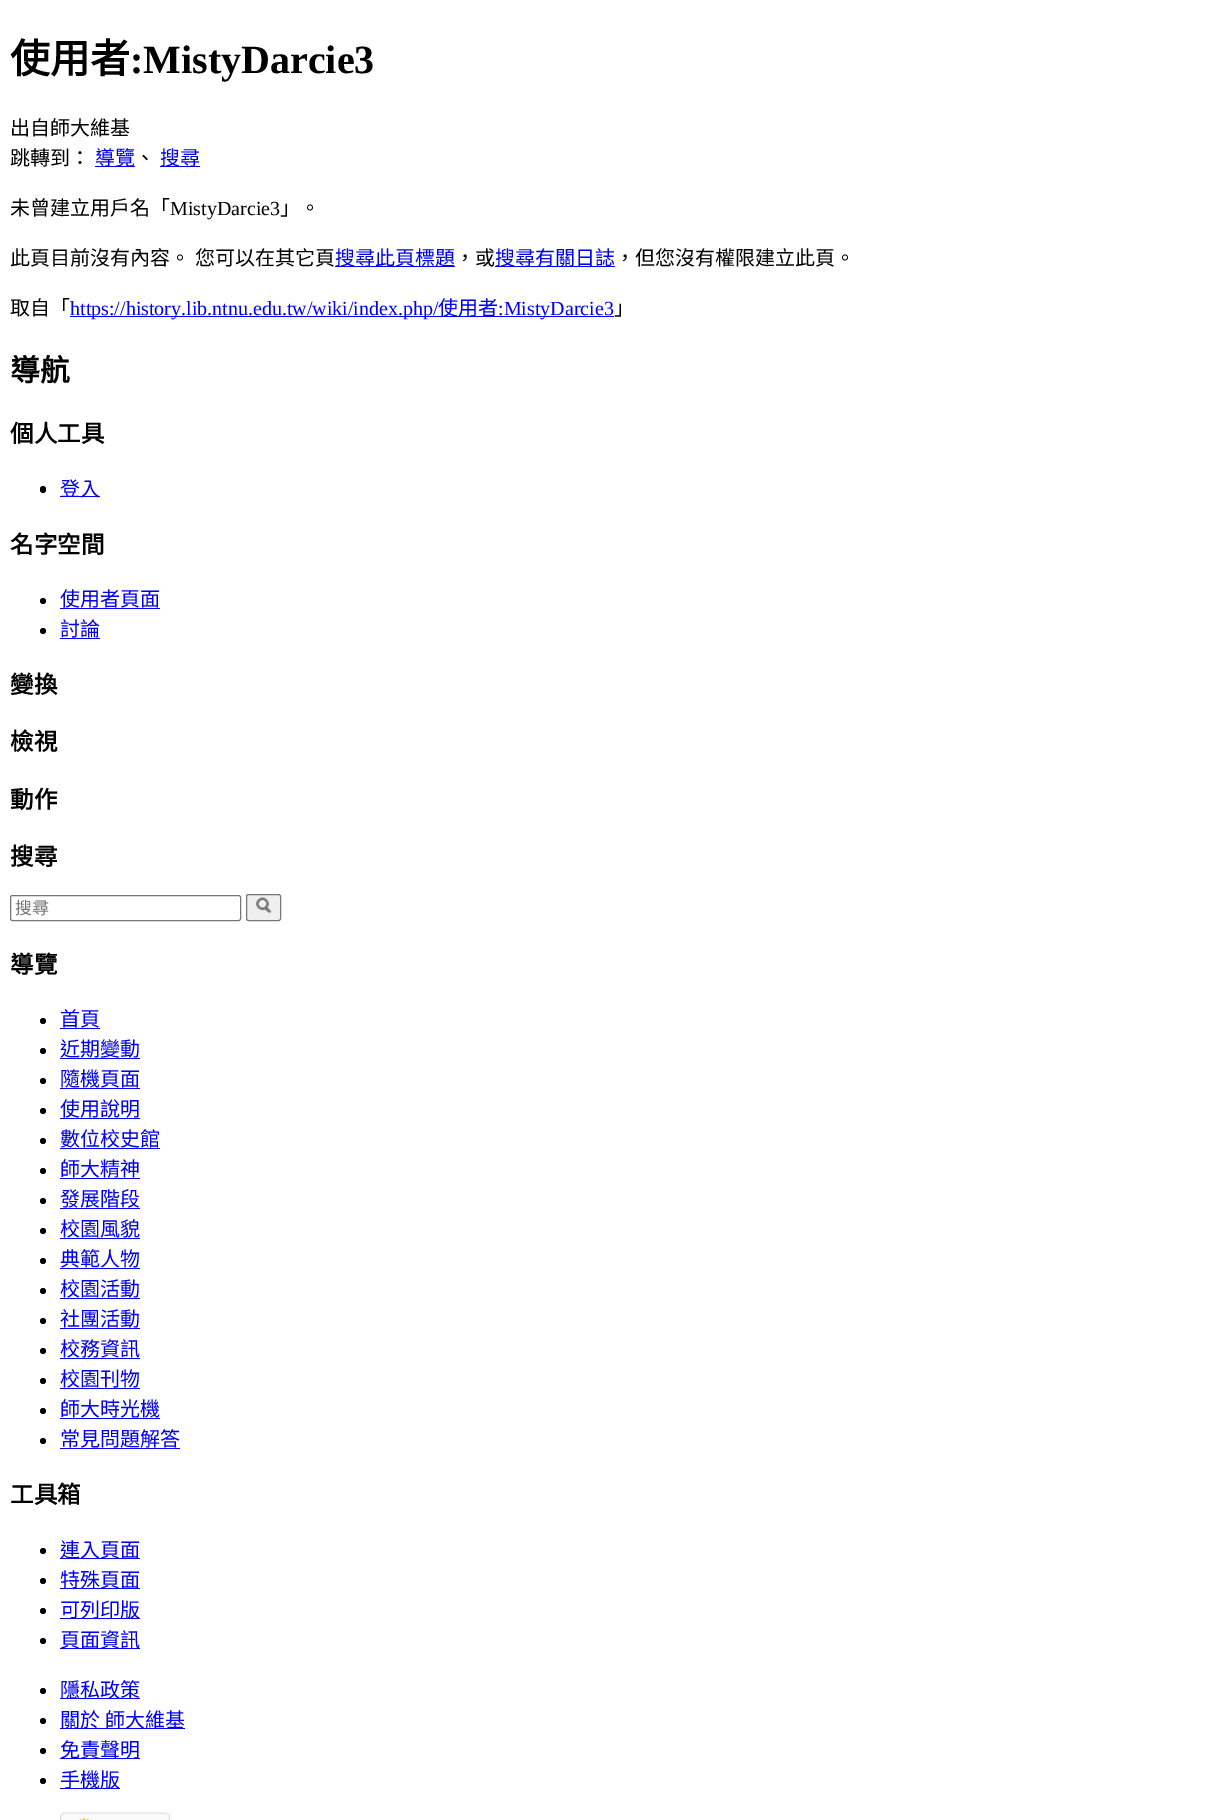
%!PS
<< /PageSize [1230 1820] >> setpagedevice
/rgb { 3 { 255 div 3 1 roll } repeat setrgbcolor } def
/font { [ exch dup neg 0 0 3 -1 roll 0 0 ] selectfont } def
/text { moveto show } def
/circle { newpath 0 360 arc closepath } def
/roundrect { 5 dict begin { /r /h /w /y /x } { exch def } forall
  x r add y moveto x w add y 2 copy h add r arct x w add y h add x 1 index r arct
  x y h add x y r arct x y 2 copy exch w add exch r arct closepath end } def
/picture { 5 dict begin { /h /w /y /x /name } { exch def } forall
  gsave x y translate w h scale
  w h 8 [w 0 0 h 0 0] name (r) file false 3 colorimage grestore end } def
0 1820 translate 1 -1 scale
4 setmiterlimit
255 255 255 rgb
0 0 1230 1820 rectfill
0 0 238 rgb
95 166 40 1 rectfill
160 166 40 1 rectfill
335 266 120 1 rectfill
495 266 120 1 rectfill
70 316 544 1 rectfill
0 0 0 rgb
40 486 6 7 3 roundrect fill
0 0 238 rgb
60 496 40 1 rectfill
0 0 0 rgb
43 601 3 circle fill
0 0 238 rgb
60 608 100 1 rectfill
0 0 0 rgb
43 631 3 circle fill
0 0 238 rgb
60 638 40 1 rectfill
118 118 118 rgb
10.5 895.5 230 25 2 roundrect stroke
239 239 239 rgb
246.5 894.5 34 26 2 roundrect gsave fill grestore
118 118 118 rgb
stroke
(img_01.rgb) 256 897 16 17 picture
0 0 0 rgb
43 1021 3 circle fill
0 0 238 rgb
60 1028 40 1 rectfill
0 0 0 rgb
43 1051 3 circle fill
0 0 238 rgb
60 1058 80 1 rectfill
0 0 0 rgb
43 1081 3 circle fill
0 0 238 rgb
60 1088 80 1 rectfill
0 0 0 rgb
43 1111 3 circle fill
0 0 238 rgb
60 1118 80 1 rectfill
0 0 0 rgb
43 1141 3 circle fill
0 0 238 rgb
60 1148 100 1 rectfill
0 0 0 rgb
43 1171 3 circle fill
0 0 238 rgb
60 1178 80 1 rectfill
0 0 0 rgb
43 1201 3 circle fill
0 0 238 rgb
60 1208 80 1 rectfill
0 0 0 rgb
43 1231 3 circle fill
0 0 238 rgb
60 1238 80 1 rectfill
0 0 0 rgb
43 1261 3 circle fill
0 0 238 rgb
60 1268 80 1 rectfill
0 0 0 rgb
43 1291 3 circle fill
0 0 238 rgb
60 1298 80 1 rectfill
0 0 0 rgb
43 1321 3 circle fill
0 0 238 rgb
60 1328 80 1 rectfill
0 0 0 rgb
43 1351 3 circle fill
0 0 238 rgb
60 1358 80 1 rectfill
0 0 0 rgb
43 1381 3 circle fill
0 0 238 rgb
60 1388 80 1 rectfill
0 0 0 rgb
43 1411 3 circle fill
0 0 238 rgb
60 1418 100 1 rectfill
0 0 0 rgb
43 1441 3 circle fill
0 0 238 rgb
60 1448 120 1 rectfill
0 0 0 rgb
43 1551 3 circle fill
0 0 238 rgb
60 1558 80 1 rectfill
0 0 0 rgb
43 1581 3 circle fill
0 0 238 rgb
60 1588 80 1 rectfill
0 0 0 rgb
43 1611 3 circle fill
0 0 238 rgb
60 1618 80 1 rectfill
0 0 0 rgb
43 1641 3 circle fill
0 0 238 rgb
60 1648 80 1 rectfill
0 0 0 rgb
43 1691 3 circle fill
0 0 238 rgb
60 1698 80 1 rectfill
0 0 0 rgb
43 1721 3 circle fill
0 0 238 rgb
60 1728 125 1 rectfill
0 0 0 rgb
43 1751 3 circle fill
0 0 238 rgb
60 1758 80 1 rectfill
0 0 0 rgb
43 1781 3 circle fill
0 0 238 rgb
60 1788 60 1 rectfill
(img_02.rgb) 60 1812 110 8 picture
/NotoSansCJKTC-Bold 40 font
0 0 0 rgb
(使用者) 10 73 text
/LiberationSerif-Bold 40 font
(:MistyDarcie3) 130 73 text
/NotoSansCJKTC-Regular 20 font
(出自師大維基) 10 135 text
(跳轉到：) 10 165 text
0 0 238 rgb
(導覽) 95 165 text
0 0 0 rgb
(、) 135 165 text
0 0 238 rgb
(搜尋) 160 165 text
0 0 0 rgb
(未曾建立用戶名「) 10 215 text
/LiberationSerif-Regular 20 font
(MistyDarcie3) 170 215 text
/NotoSansCJKTC-Regular 20 font
(」。) 280 215 text
10 265 moveto 1 0 32 (此頁目前沒有內容。 您可以在其它頁) widthshow
0 0 238 rgb
(搜尋此頁標題) 335 265 text
0 0 0 rgb
(，或) 455 265 text
0 0 238 rgb
(搜尋有關日誌) 495 265 text
0 0 0 rgb
(，但您沒有權限建立此頁。) 615 265 text
(取自「) 10 315 text
/LiberationSerif-Regular 20 font
0 0 238 rgb
(https://history.lib.ntnu.edu.tw/wiki/index.php/) 70 315 text
/NotoSansCJKTC-Regular 20 font
(使用者) 438 315 text
/LiberationSerif-Regular 20 font
(:MistyDarcie3) 498 315 text
/NotoSansCJKTC-Regular 20 font
0 0 0 rgb
(」) 614 315 text
/NotoSansCJKTC-Bold 30 font
(導航) 10 381 text
/NotoSansCJKTC-Bold 23.5 font
(個人工具) 10 442 text
/NotoSansCJKTC-Regular 20 font
0 0 238 rgb
(登入) 60 496 text
/NotoSansCJKTC-Bold 23.5 font
0 0 0 rgb
(名字空間) 10 553 text
/NotoSansCJKTC-Regular 20 font
0 0 238 rgb
(使用者頁面) 60 606 text
(討論) 60 636 text
/NotoSansCJKTC-Bold 23.5 font
0 0 0 rgb
(變換) 10 693 text
(檢視) 10 750 text
(動作) 10 808 text
(搜尋) 10 865 text
/NotoSansCJKTC-Regular 17 font
117 117 117 rgb
(搜尋) 15 914 text
/NotoSansCJKTC-Bold 23.5 font
0 0 0 rgb
(導覽) 10 973 text
/NotoSansCJKTC-Regular 20 font
0 0 238 rgb
(首頁) 60 1026 text
(近期變動) 60 1056 text
(隨機頁面) 60 1086 text
(使用說明) 60 1116 text
(數位校史館) 60 1146 text
(師大精神) 60 1176 text
(發展階段) 60 1206 text
(校園風貌) 60 1236 text
(典範人物) 60 1266 text
(校園活動) 60 1296 text
(社團活動) 60 1326 text
(校務資訊) 60 1356 text
(校園刊物) 60 1386 text
(師大時光機) 60 1416 text
(常見問題解答) 60 1446 text
/NotoSansCJKTC-Bold 23.5 font
0 0 0 rgb
(工具箱) 10 1503 text
/NotoSansCJKTC-Regular 20 font
0 0 238 rgb
(連入頁面) 60 1557 text
(特殊頁面) 60 1587 text
(可列印版) 60 1617 text
(頁面資訊) 60 1647 text
(隱私政策) 60 1697 text
60 1727 moveto 1 0 32 (關於 師大維基) widthshow
(免責聲明) 60 1757 text
(手機版) 60 1787 text
showpage
